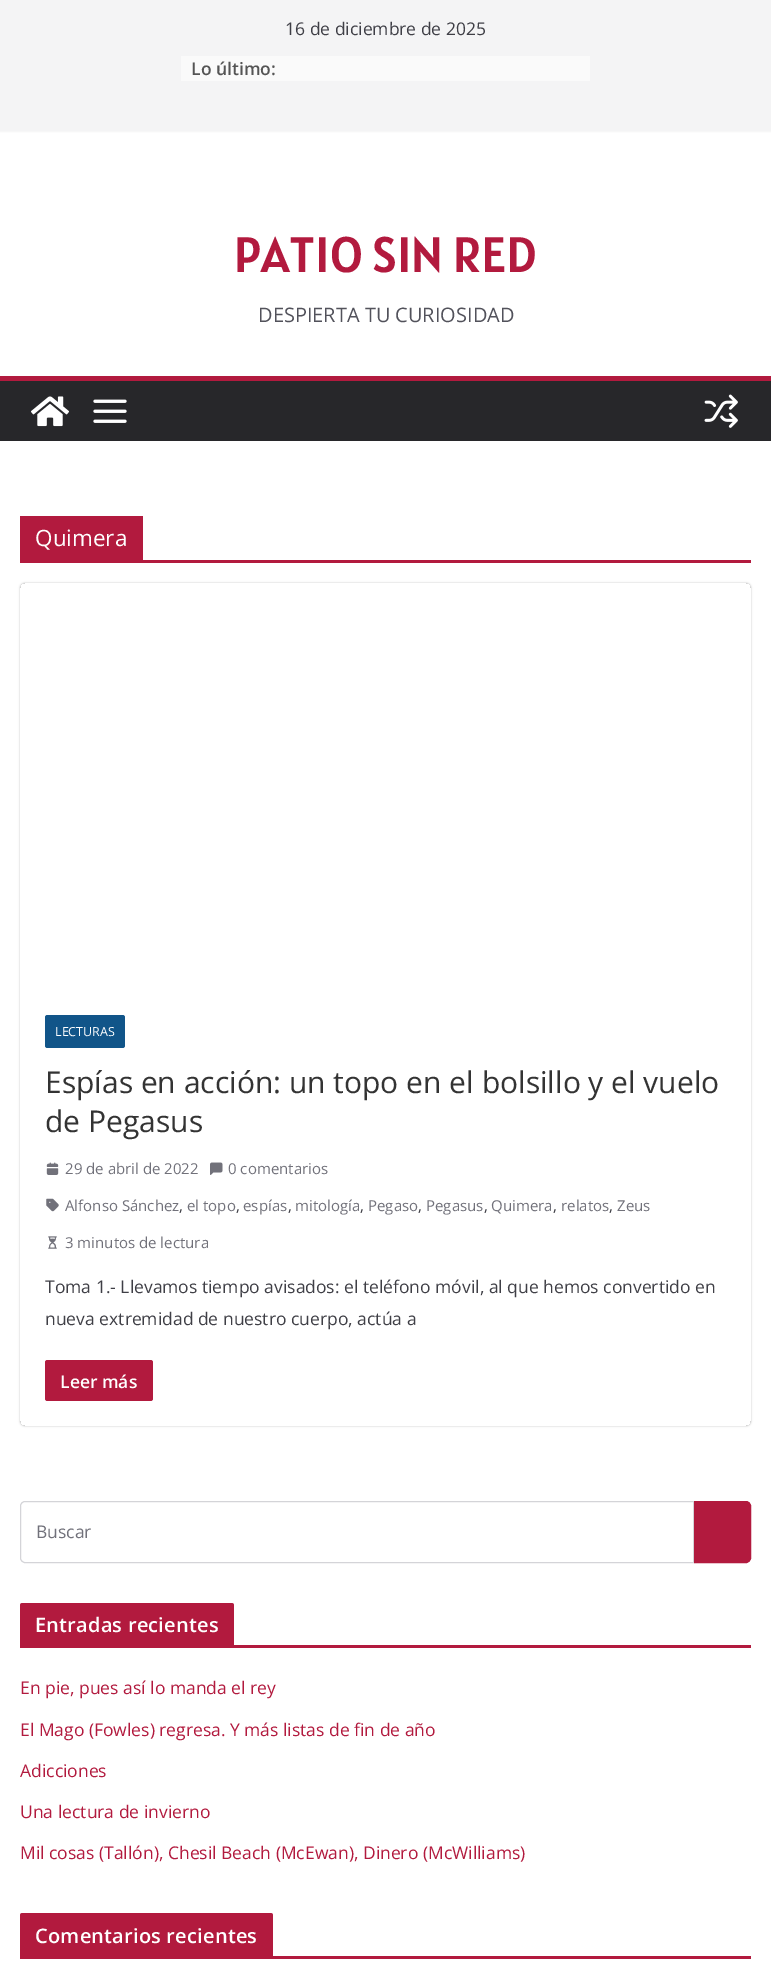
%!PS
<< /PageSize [771 1973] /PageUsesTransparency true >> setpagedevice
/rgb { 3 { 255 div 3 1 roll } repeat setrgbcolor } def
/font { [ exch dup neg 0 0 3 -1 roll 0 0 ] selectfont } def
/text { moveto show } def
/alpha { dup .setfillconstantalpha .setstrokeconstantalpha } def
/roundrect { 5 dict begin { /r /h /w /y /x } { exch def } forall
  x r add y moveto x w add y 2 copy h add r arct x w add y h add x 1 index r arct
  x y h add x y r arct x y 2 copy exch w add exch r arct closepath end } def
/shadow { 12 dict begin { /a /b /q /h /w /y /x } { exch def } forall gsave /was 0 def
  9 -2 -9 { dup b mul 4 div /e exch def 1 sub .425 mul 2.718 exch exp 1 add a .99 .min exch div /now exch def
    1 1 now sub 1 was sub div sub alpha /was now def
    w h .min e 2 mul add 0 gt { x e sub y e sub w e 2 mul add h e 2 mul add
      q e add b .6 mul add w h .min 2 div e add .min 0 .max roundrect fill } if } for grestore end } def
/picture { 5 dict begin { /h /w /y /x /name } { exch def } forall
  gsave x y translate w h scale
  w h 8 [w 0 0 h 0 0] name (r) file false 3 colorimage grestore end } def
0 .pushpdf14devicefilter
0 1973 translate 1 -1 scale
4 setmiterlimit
255 255 255 rgb
0 0 771 1973 rectfill
0 0 0 rgb
0 0 771 131 0 1 0.1 shadow
244 244 245 rgb
0 0 771 131 rectfill
250 250 250 rgb
181 56 409 25 rectfill
39 39 42 rgb
0 381 771 60 rectfill
178 26 62 rgb
0 376 771 5 rectfill
(img_01.rgb) 31 396 38 31 picture
(img_02.rgb) 93 399 34 24 picture
(img_03.rgb) 704 394 34 34 picture
20 560 731 3 rectfill
20 516 123 44 rectfill
gsave
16 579 moveto 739 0 rlineto 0 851 rlineto -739 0 rlineto closepath 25 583 moveto 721 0 rlineto 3 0 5 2 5 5 rcurveto 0 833 rlineto 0 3 -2 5 -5 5 rcurveto -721 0 rlineto -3 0 -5 -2 -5 -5 rcurveto 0 -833 rlineto 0 -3 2 -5 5 -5 rcurveto closepath eoclip newpath
0 0 0 rgb
20 583 731 843 5 1 0.24 shadow
grestore
17 85 137 rgb
45 1015 80 33 2.5 roundrect fill
(img_04.rgb) 46 1162 13 13 picture
(img_05.rgb) 210 1162 13 13 picture
(img_06.rgb) 46 1198 13 14 picture
(img_07.rgb) 48 1236 9 13 picture
178 26 62 rgb
45 1360 108 41 2.5 roundrect fill
212 212 216 rgb
25 1501.5 moveto 668.5 0 rlineto 0 61 rlineto -668.5 0 rlineto -2.5 0 -4.5 -2 -4.5 -4.5 rcurveto 0 -52 rlineto 0 -2.5 2 -4.5 4.5 -4.5 rcurveto closepath stroke
178 26 62 rgb
694.5 1501.5 moveto 51.5 0 rlineto 2.5 0 4.5 2 4.5 4.5 rcurveto 0 52 rlineto 0 2.5 -2 4.5 -4.5 4.5 rcurveto -51.5 0 rlineto closepath gsave fill grestore
stroke
20 1645 731 3 rectfill
22.5 1603 moveto 209 0 rlineto 1.5 0 2.5 1 2.5 2.5 rcurveto 0 39.5 rlineto -214 0 rlineto 0 -39.5 rlineto 0 -1.5 1 -2.5 2.5 -2.5 rcurveto closepath fill
20 1956 731 3 rectfill
22.5 1913 moveto 248 0 rlineto 1.5 0 2.5 1 2.5 2.5 rcurveto 0 40.5 rlineto -253 0 rlineto 0 -40.5 rlineto 0 -1.5 1 -2.5 2.5 -2.5 rcurveto closepath fill
/OpenSans-Regular 17.5 font
63 63 70 rgb
(16 de diciembre de 2025) 285 35 text
/OpenSans-SemiBold 17.5 font
85 85 85 rgb
(Lo último:) 191 75 text
/Alatsi-Regular 50 font
178 26 62 rgb
(PATIO SIN RED) 234 272 text
/OpenSans-Regular 20 font
82 82 91 rgb
(DESPIERTA TU CURIOSIDAD) 258 322 text
/OpenSans-Regular 22.5 font
255 255 255 rgb
(Quimera) 35 546 text
/OpenSans-Regular 12.5 font
(LECTURAS) 55 1036 text
/OpenSans-Regular 30 font
51 51 51 rgb
(Espías en acción: un topo en el bolsillo y el vuelo) 45 1093 text
(de Pegasus) 45 1132 text
/OpenSans-Regular 15 font
113 113 122 rgb
(29 de abril de 2022) 65 1174 text
(0 comentarios) 228 1174 text
(Alfonso Sánchez) 65 1211 text
63 63 70 rgb
(,) 179 1211 text
113 113 122 rgb
(el topo) 187 1211 text
63 63 70 rgb
(,) 236 1211 text
113 113 122 rgb
(espías) 243 1211 text
63 63 70 rgb
(,) 288 1211 text
113 113 122 rgb
(mitología) 295 1211 text
63 63 70 rgb
(,) 360 1211 text
113 113 122 rgb
(Pegaso) 368 1211 text
63 63 70 rgb
(,) 418 1211 text
113 113 122 rgb
(Pegasus) 426 1211 text
63 63 70 rgb
(,) 484 1211 text
113 113 122 rgb
(Quimera) 491 1211 text
63 63 70 rgb
(,) 553 1211 text
113 113 122 rgb
(relatos) 561 1211 text
63 63 70 rgb
(,) 609 1211 text
113 113 122 rgb
(Zeus) 617 1211 text
(3 minutos de lectura) 65 1248 text
/OpenSans-Regular 17.5 font
63 63 70 rgb
(Toma 1.- Llevamos tiempo avisados: el teléfono móvil, al que hemos convertido en) 45 1293 text
(nueva extremidad de nuestro cuerpo, actúa a) 45 1325 text
/OpenSans-SemiBold 17.5 font
255 255 255 rgb
(Leer más) 60 1388 text
/OpenSans-Regular 17.5 font
113 113 122 rgb
(Buscar) 36 1538 text
/OpenSans-SemiBold 20 font
255 255 255 rgb
35 1632 moveto 0.2 0 (Entradas recientes) ashow
/OpenSans-Regular 17.5 font
178 26 62 rgb
(En pie, pues así lo manda el rey) 20 1694 text
(El Mago \(Fowles\) regresa. Y más listas de fin de año) 20 1736 text
(Adicciones) 20 1777 text
(Una lectura de invierno) 20 1818 text
(Mil cosas \(Tallón\), Chesil Beach \(McEwan\), Dinero \(McWilliams\)) 20 1859 text
/OpenSans-SemiBold 20 font
255 255 255 rgb
35 1943 moveto 0.2 0 (Comentarios recientes) ashow
.poppdf14devicefilter showpage
